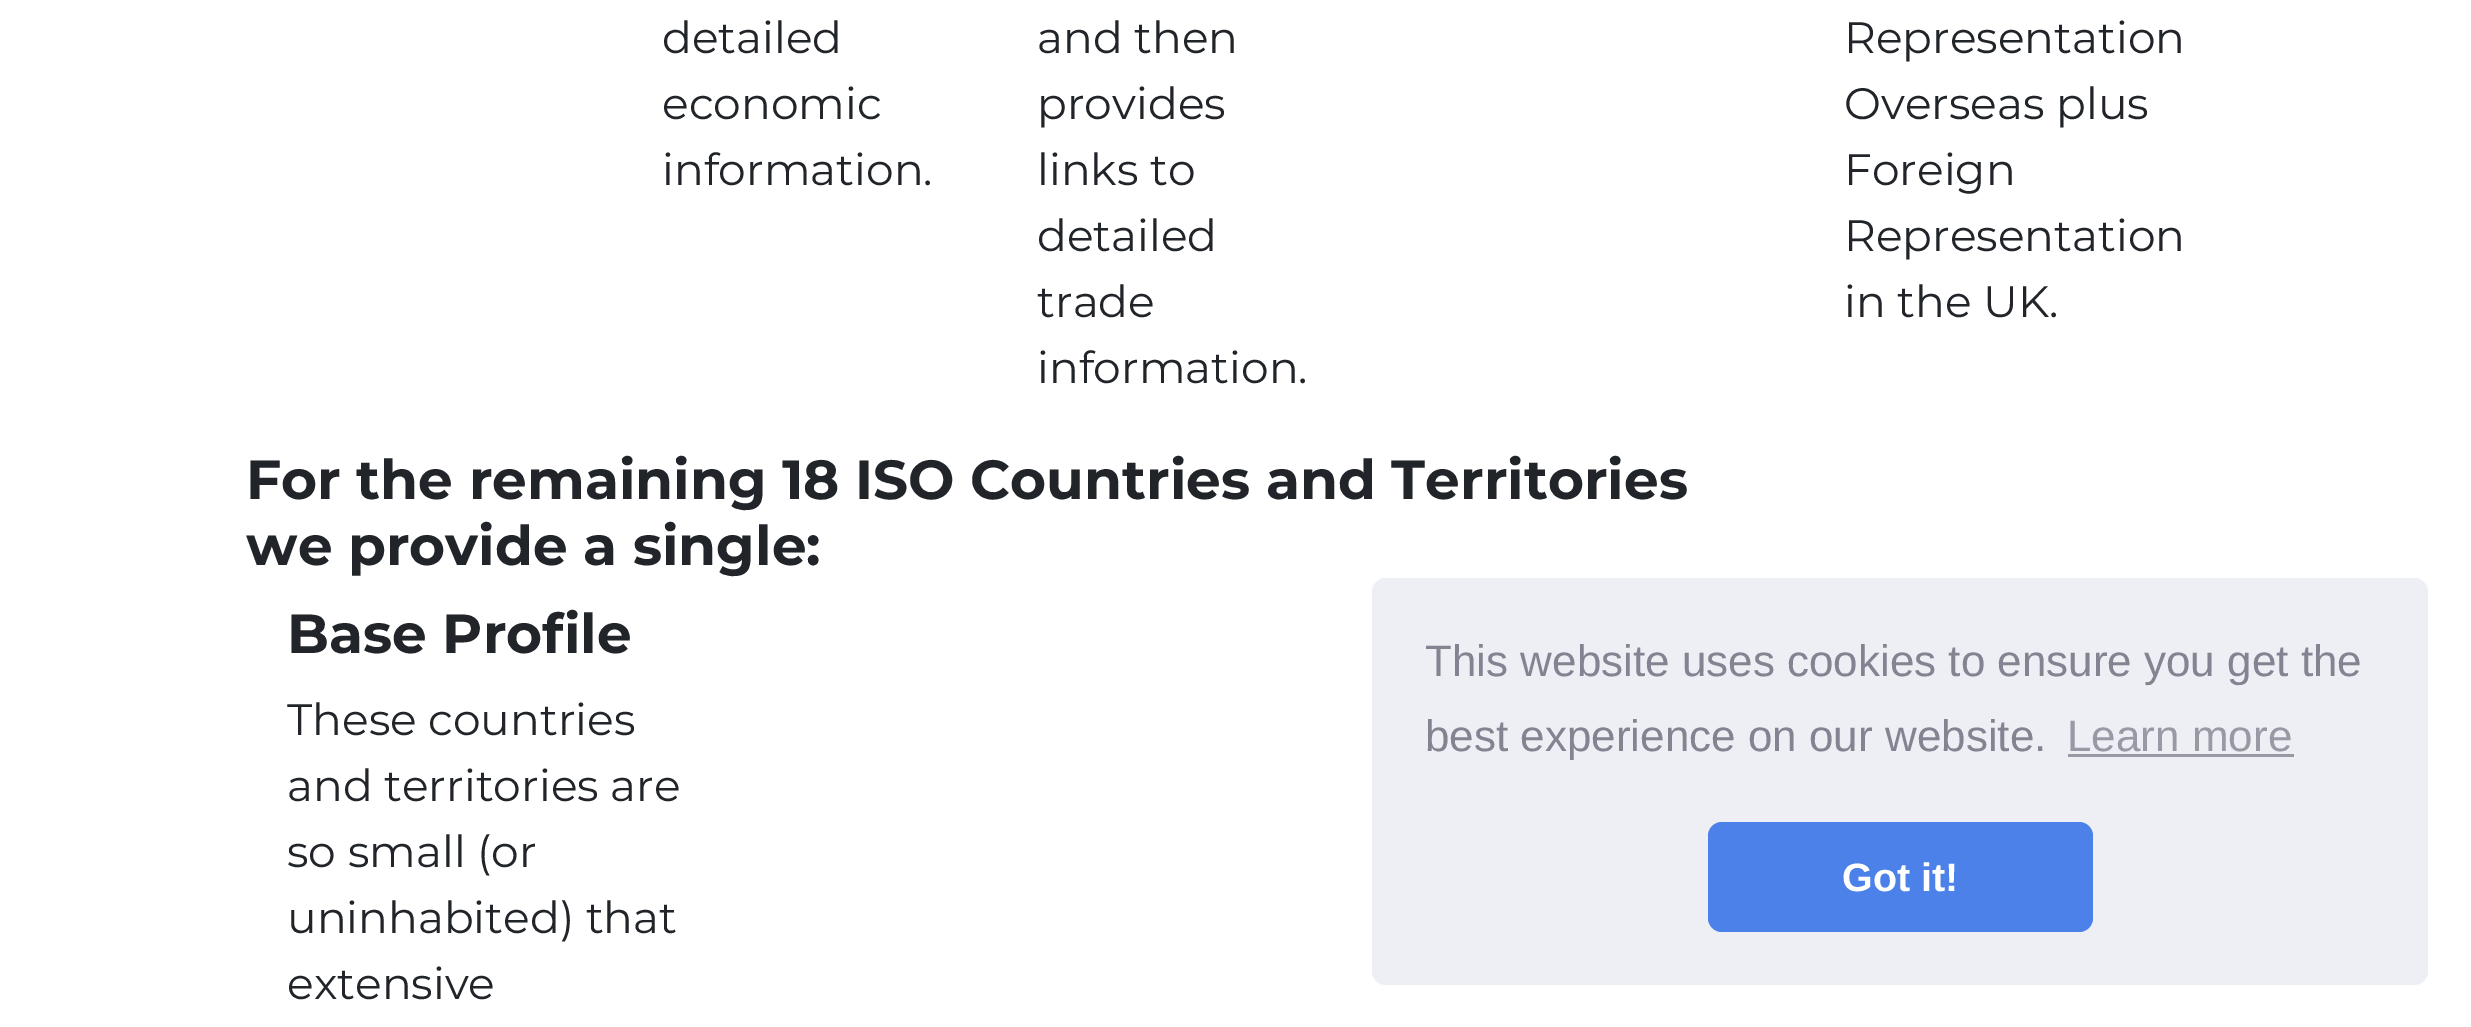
%!PS
<< /PageSize [2471 1027] >> setpagedevice
/rgb { 3 { 255 div 3 1 roll } repeat setrgbcolor } def
/font { [ exch dup neg 0 0 3 -1 roll 0 0 ] selectfont } def
/text { moveto show } def
/roundrect { 5 dict begin { /r /h /w /y /x } { exch def } forall
  x r add y moveto x w add y 2 copy h add r arct x w add y h add x 1 index r arct
  x y h add x y r arct x y 2 copy exch w add exch r arct closepath end } def
0 1027 translate 1 -1 scale
4 setmiterlimit
255 255 255 rgb
0 0 2471 1027 rectfill
237 239 245 rgb
1372 578 1056 407 14 roundrect fill
152 153 165 rgb
2068 754 226 3 rectfill
75 129 232 rgb
1708 822 385 110 14 roundrect fill
/Montserrat-Regular 44 font
33 37 41 rgb
(detailed) 662 53 text
(economic) 662 119 text
(information.) 662 185 text
(and then) 1037 53 text
(provides) 1037 119 text
(links to) 1037 185 text
(detailed) 1037 251 text
(trade) 1037 317 text
(information.) 1037 383 text
(Representation) 1844 53 text
(Overseas plus) 1844 119 text
(Foreign) 1844 185 text
(Representation) 1844 251 text
(in the UK.) 1844 317 text
/Montserrat-Bold 55 font
(For the remaining 18 ISO Countries and Territories) 246 499 text
(we provide a single:) 246 565 text
(Base Profile) 287 653 text
/Montserrat-Regular 44 font
(These countries) 287 735 text
(and territories are) 287 801 text
(so small \(or) 287 867 text
(uninhabited\) that) 287 933 text
(extensive) 287 999 text
/LiberationSans-Regular 44 font
131 131 145 rgb
(This website uses cookies to ensure you get the) 1425 676 text
(best experience on our website.) 1425 751 text
152 153 165 rgb
(Learn more) 2067 751 text
/LiberationSans-Bold 39.5 font
255 255 255 rgb
(Got it!) 1842 891 text
showpage
